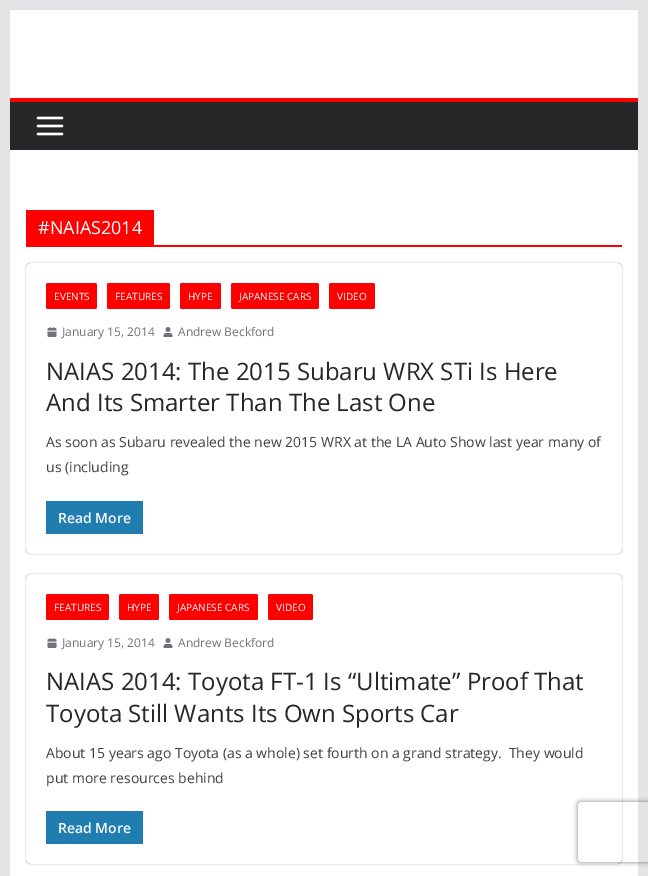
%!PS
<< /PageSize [648 876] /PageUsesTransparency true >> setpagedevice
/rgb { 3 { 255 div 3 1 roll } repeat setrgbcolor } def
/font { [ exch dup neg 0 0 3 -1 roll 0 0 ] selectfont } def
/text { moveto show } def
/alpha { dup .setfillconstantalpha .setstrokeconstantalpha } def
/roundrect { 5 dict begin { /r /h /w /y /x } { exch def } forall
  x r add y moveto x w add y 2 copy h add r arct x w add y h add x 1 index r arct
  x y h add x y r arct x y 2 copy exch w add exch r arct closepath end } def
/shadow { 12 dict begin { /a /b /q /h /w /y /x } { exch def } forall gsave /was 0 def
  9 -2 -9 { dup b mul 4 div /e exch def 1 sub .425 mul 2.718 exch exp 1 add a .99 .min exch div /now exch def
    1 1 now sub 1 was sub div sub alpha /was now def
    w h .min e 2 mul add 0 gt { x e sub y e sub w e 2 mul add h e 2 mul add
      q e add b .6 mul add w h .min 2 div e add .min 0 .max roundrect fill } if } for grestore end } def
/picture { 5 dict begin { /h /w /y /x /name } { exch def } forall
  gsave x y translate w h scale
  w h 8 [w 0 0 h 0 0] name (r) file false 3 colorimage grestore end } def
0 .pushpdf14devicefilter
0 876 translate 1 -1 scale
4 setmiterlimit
228 228 231 rgb
0 0 648 876 rectfill
255 255 255 rgb
10 10 628 88 rectfill
39 39 42 rgb
10 102 628 48 rectfill
255 0 0 rgb
10 98 628 4 rectfill
(img_01.rgb) 36 116 28 20 picture
255 255 255 rgb
10 150 628 726 rectfill
255 0 0 rgb
26 245 596 2 rectfill
26 210 128 35 rectfill
gsave
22 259 moveto 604 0 rlineto 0 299 rlineto -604 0 rlineto closepath 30 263 moveto 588 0 rlineto 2 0 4 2 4 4 rcurveto 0 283 rlineto 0 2 -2 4 -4 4 rcurveto -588 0 rlineto -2 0 -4 -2 -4 -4 rcurveto 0 -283 rlineto 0 -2 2 -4 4 -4 rcurveto closepath eoclip newpath
0 0 0 rgb
26 263 596 291 4 1 0.24 shadow
grestore
46 283 51 26 2 roundrect fill
107 283 63 26 2 roundrect fill
180 283 41 26 2 roundrect fill
231 283 88 26 2 roundrect fill
329 283 46 26 2 roundrect fill
(img_02.rgb) 47 327 10 10 picture
(img_03.rgb) 163 327 10 10 picture
46 501 97 33 rectfill
32 125 175 rgb
46 501 97 33 2 roundrect fill
gsave
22 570 moveto 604 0 rlineto 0 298 rlineto -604 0 rlineto closepath 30 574 moveto 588 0 rlineto 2 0 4 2 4 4 rcurveto 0 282 rlineto 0 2 -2 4 -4 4 rcurveto -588 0 rlineto -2 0 -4 -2 -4 -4 rcurveto 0 -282 rlineto 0 -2 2 -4 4 -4 rcurveto closepath eoclip newpath
0 0 0 rgb
26 574 596 290 4 1 0.24 shadow
grestore
255 0 0 rgb
46 594 63 26 2 roundrect fill
119 594 40 26 2 roundrect fill
169 594 89 26 2 roundrect fill
268 594 45 26 2 roundrect fill
(img_02.rgb) 47 638 10 10 picture
(img_03.rgb) 163 638 10 10 picture
46 811 97 33 rectfill
32 125 175 rgb
46 811 97 33 2 roundrect fill
gsave
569 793 moveto 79 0 rlineto 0 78 rlineto -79 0 rlineto closepath 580 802 moveto 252 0 rlineto 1 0 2 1 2 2 rcurveto 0 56 rlineto 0 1 -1 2 -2 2 rcurveto -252 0 rlineto -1 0 -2 -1 -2 -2 rcurveto 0 -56 rlineto 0 -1 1 -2 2 -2 rcurveto closepath eoclip newpath
128 128 128 rgb
578 802 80 60 2 2.5 1 shadow
grestore
/OpenSans-Regular 18 font
255 255 255 rgb
(#NAIAS2014) 38 234 text
/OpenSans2-Regular 10 font
(EVENTS) 54 300 text
(FEATURES) 115 300 text
(HYPE) 188 300 text
(JAPANESE CARS) 239 300 text
(VIDEO) 337 300 text
/OpenSans2-Regular 12 font
113 113 122 rgb
(January 15, 2014) 62 336 text
(Andrew Beckford) 178 336 text
/OpenSans-Regular 24 font
39 39 42 rgb
(NAIAS 2014: The 2015 Subaru WRX STi Is Here) 46 380 text
(And Its Smarter Than The Last One) 46 411 text
/OpenSans2-Regular 14 font
63 63 70 rgb
(As soon as Subaru revealed the new 2015 WRX at the LA Auto Show last year many of) 46 447 text
(us \(including) 46 472 text
/OpenSans-SemiBold 14 font
255 255 255 rgb
(Read More) 58 523 text
/OpenSans2-Regular 10 font
(FEATURES) 54 611 text
(HYPE) 127 611 text
(JAPANESE CARS) 177 611 text
(VIDEO) 276 611 text
/OpenSans2-Regular 12 font
113 113 122 rgb
(January 15, 2014) 62 647 text
(Andrew Beckford) 178 647 text
/OpenSans-Regular 24 font
39 39 42 rgb
(NAIAS 2014: Toyota FT-1 Is “Ultimate” Proof That) 46 690 text
(Toyota Still Wants Its Own Sports Car) 46 722 text
/OpenSans2-Regular 14 font
63 63 70 rgb
(About 15 years ago Toyota \(as a whole\) set fourth on a grand strategy.  They would) 46 758 text
(put more resources behind) 46 783 text
/OpenSans-SemiBold 14 font
255 255 255 rgb
(Read More) 58 833 text
.poppdf14devicefilter showpage
